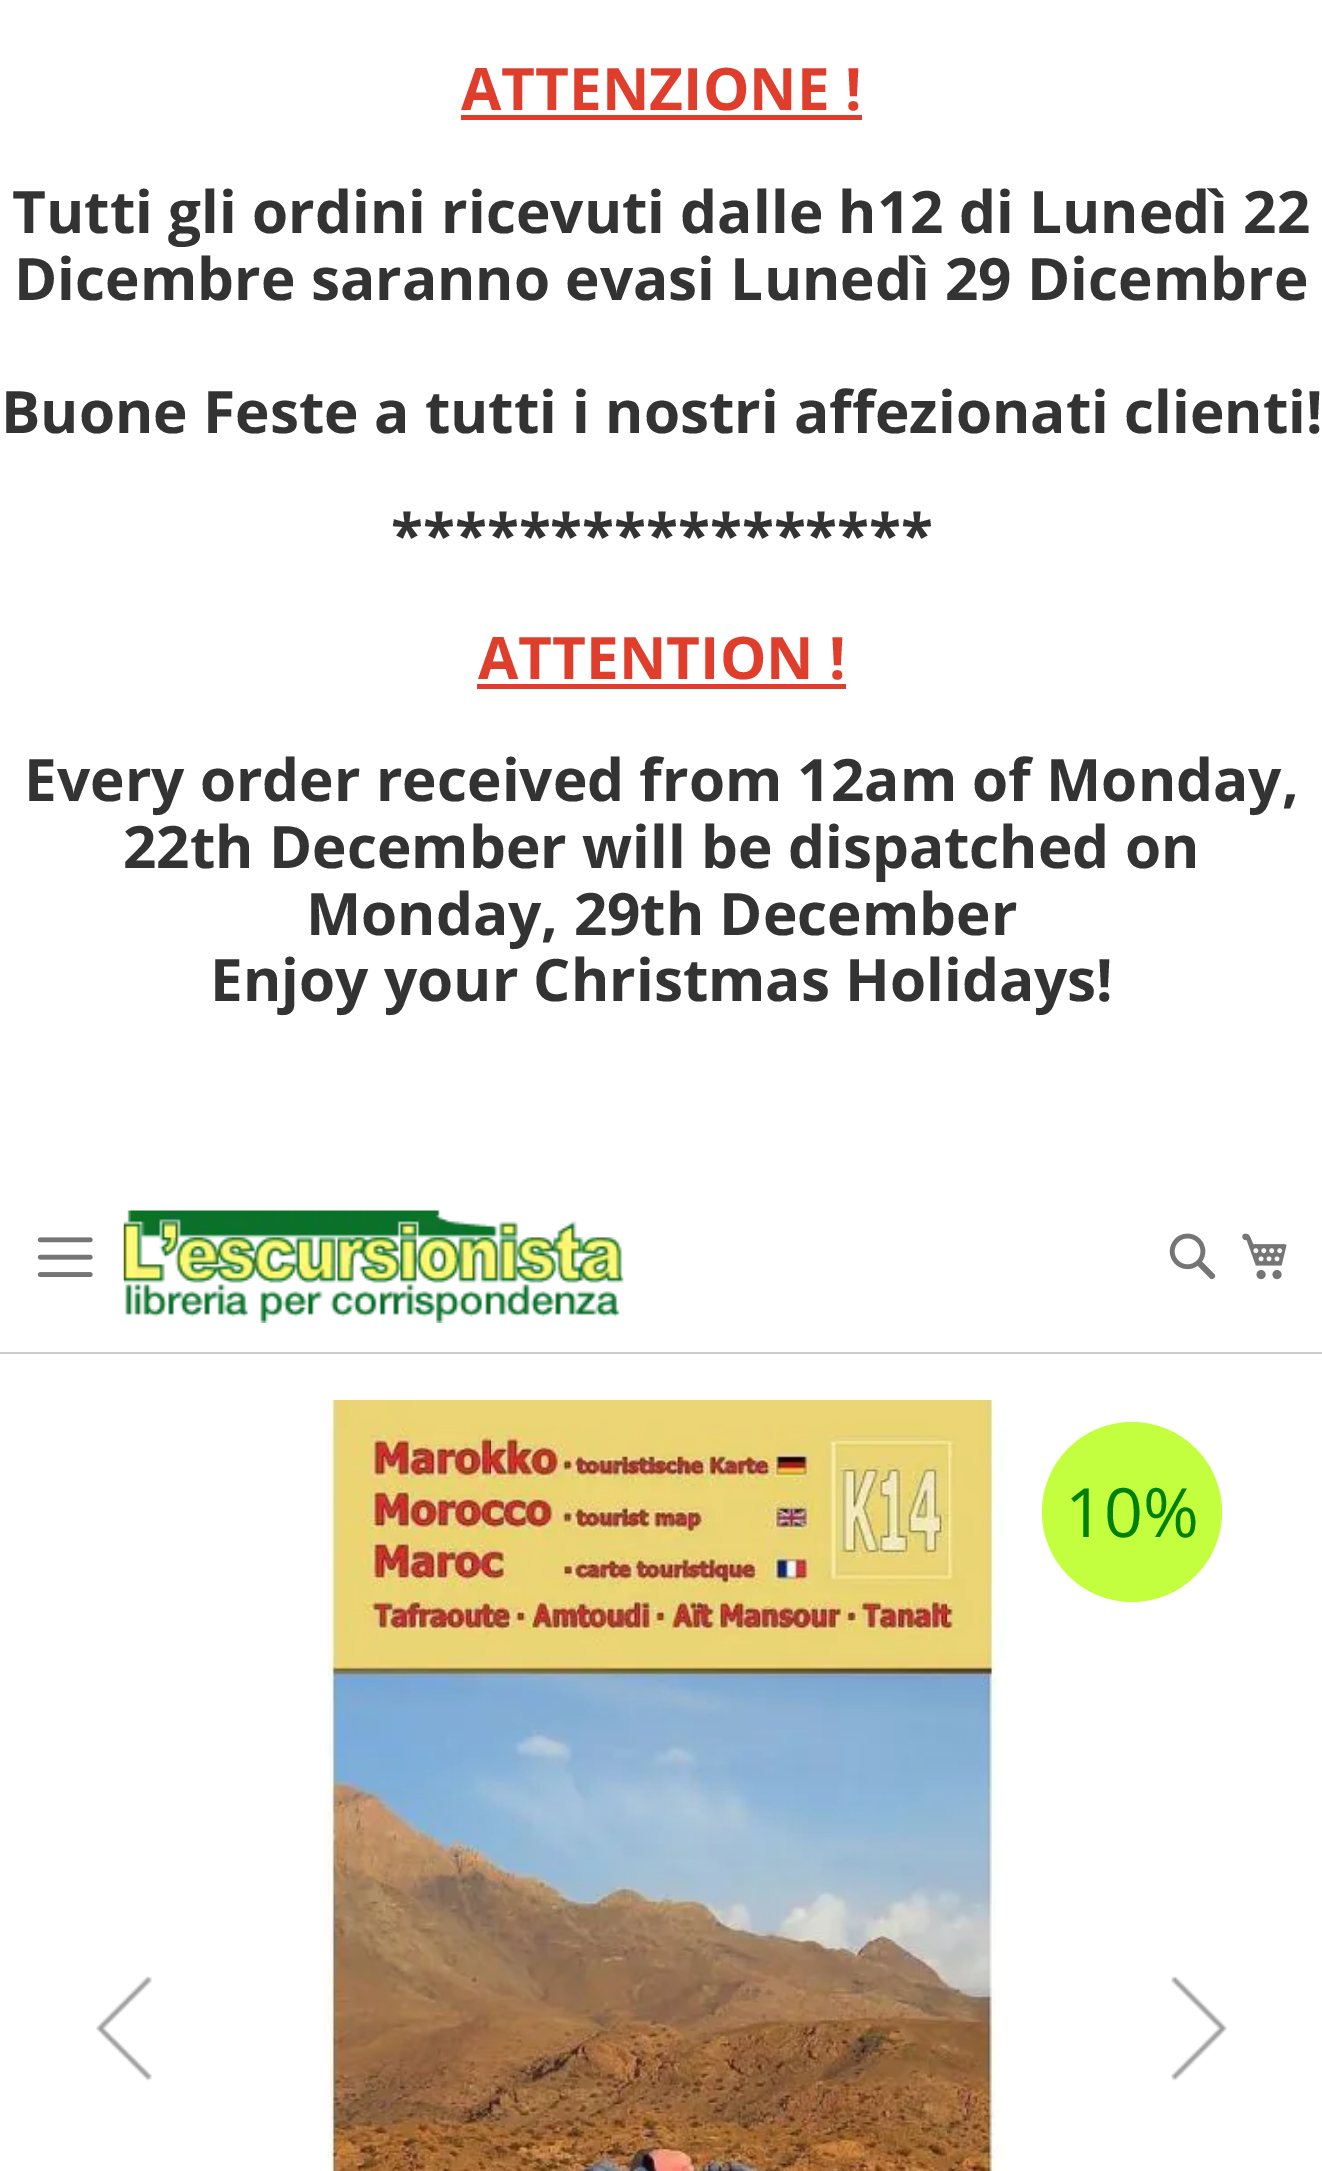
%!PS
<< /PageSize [1322 2171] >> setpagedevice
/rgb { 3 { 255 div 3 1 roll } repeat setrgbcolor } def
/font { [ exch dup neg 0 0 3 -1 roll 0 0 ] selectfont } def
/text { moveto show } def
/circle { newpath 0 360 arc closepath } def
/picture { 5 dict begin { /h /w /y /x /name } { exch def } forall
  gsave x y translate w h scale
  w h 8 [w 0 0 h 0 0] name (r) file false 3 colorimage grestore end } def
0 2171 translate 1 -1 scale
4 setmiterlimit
255 255 255 rgb
0 0 1322 2171 rectfill
204 204 204 rgb
0 1352 1322 2 rectfill
224 62 45 rgb
461 115 401 5 rectfill
477 684 369 5 rectfill
(img_01.rgb) 37 1237 56 40 picture
(img_02.rgb) 123 1210 501 113 picture
(img_03.rgb) 1169 1233 47 47 picture
(img_04.rgb) 1242 1233 45 47 picture
(img_05.rgb) 96 1976 56 105 picture
(img_06.rgb) 325 1400 685 771 picture
(img_07.rgb) 1171 1976 56 105 picture
195 255 62 rgb
1132 1512 90 circle fill
/OpenSans-Bold 58.5 font
224 62 45 rgb
(ATTENZIONE !) 461 110 text
51 51 51 rgb
(Tutti gli ordini ricevuti dalle h12 di Lunedì 22) 12 233 text
(Dicembre saranno evasi Lunedì 29 Dicembre) 14 300 text
(Buone Feste a tutti i nostri affezionati clienti!) 1 433 text
(*****************) 391 556 text
224 62 45 rgb
(ATTENTION !) 478 679 text
51 51 51 rgb
(Every order received from 12am of Monday,) 24 801 text
(22th December will be dispatched on) 123 868 text
(Monday, 29th December) 306 935 text
(Enjoy your Christmas Holidays!) 210 1001 text
/OpenSans-Regular 68 font
0 128 0 rgb
(10%) 1065 1537 text
showpage
